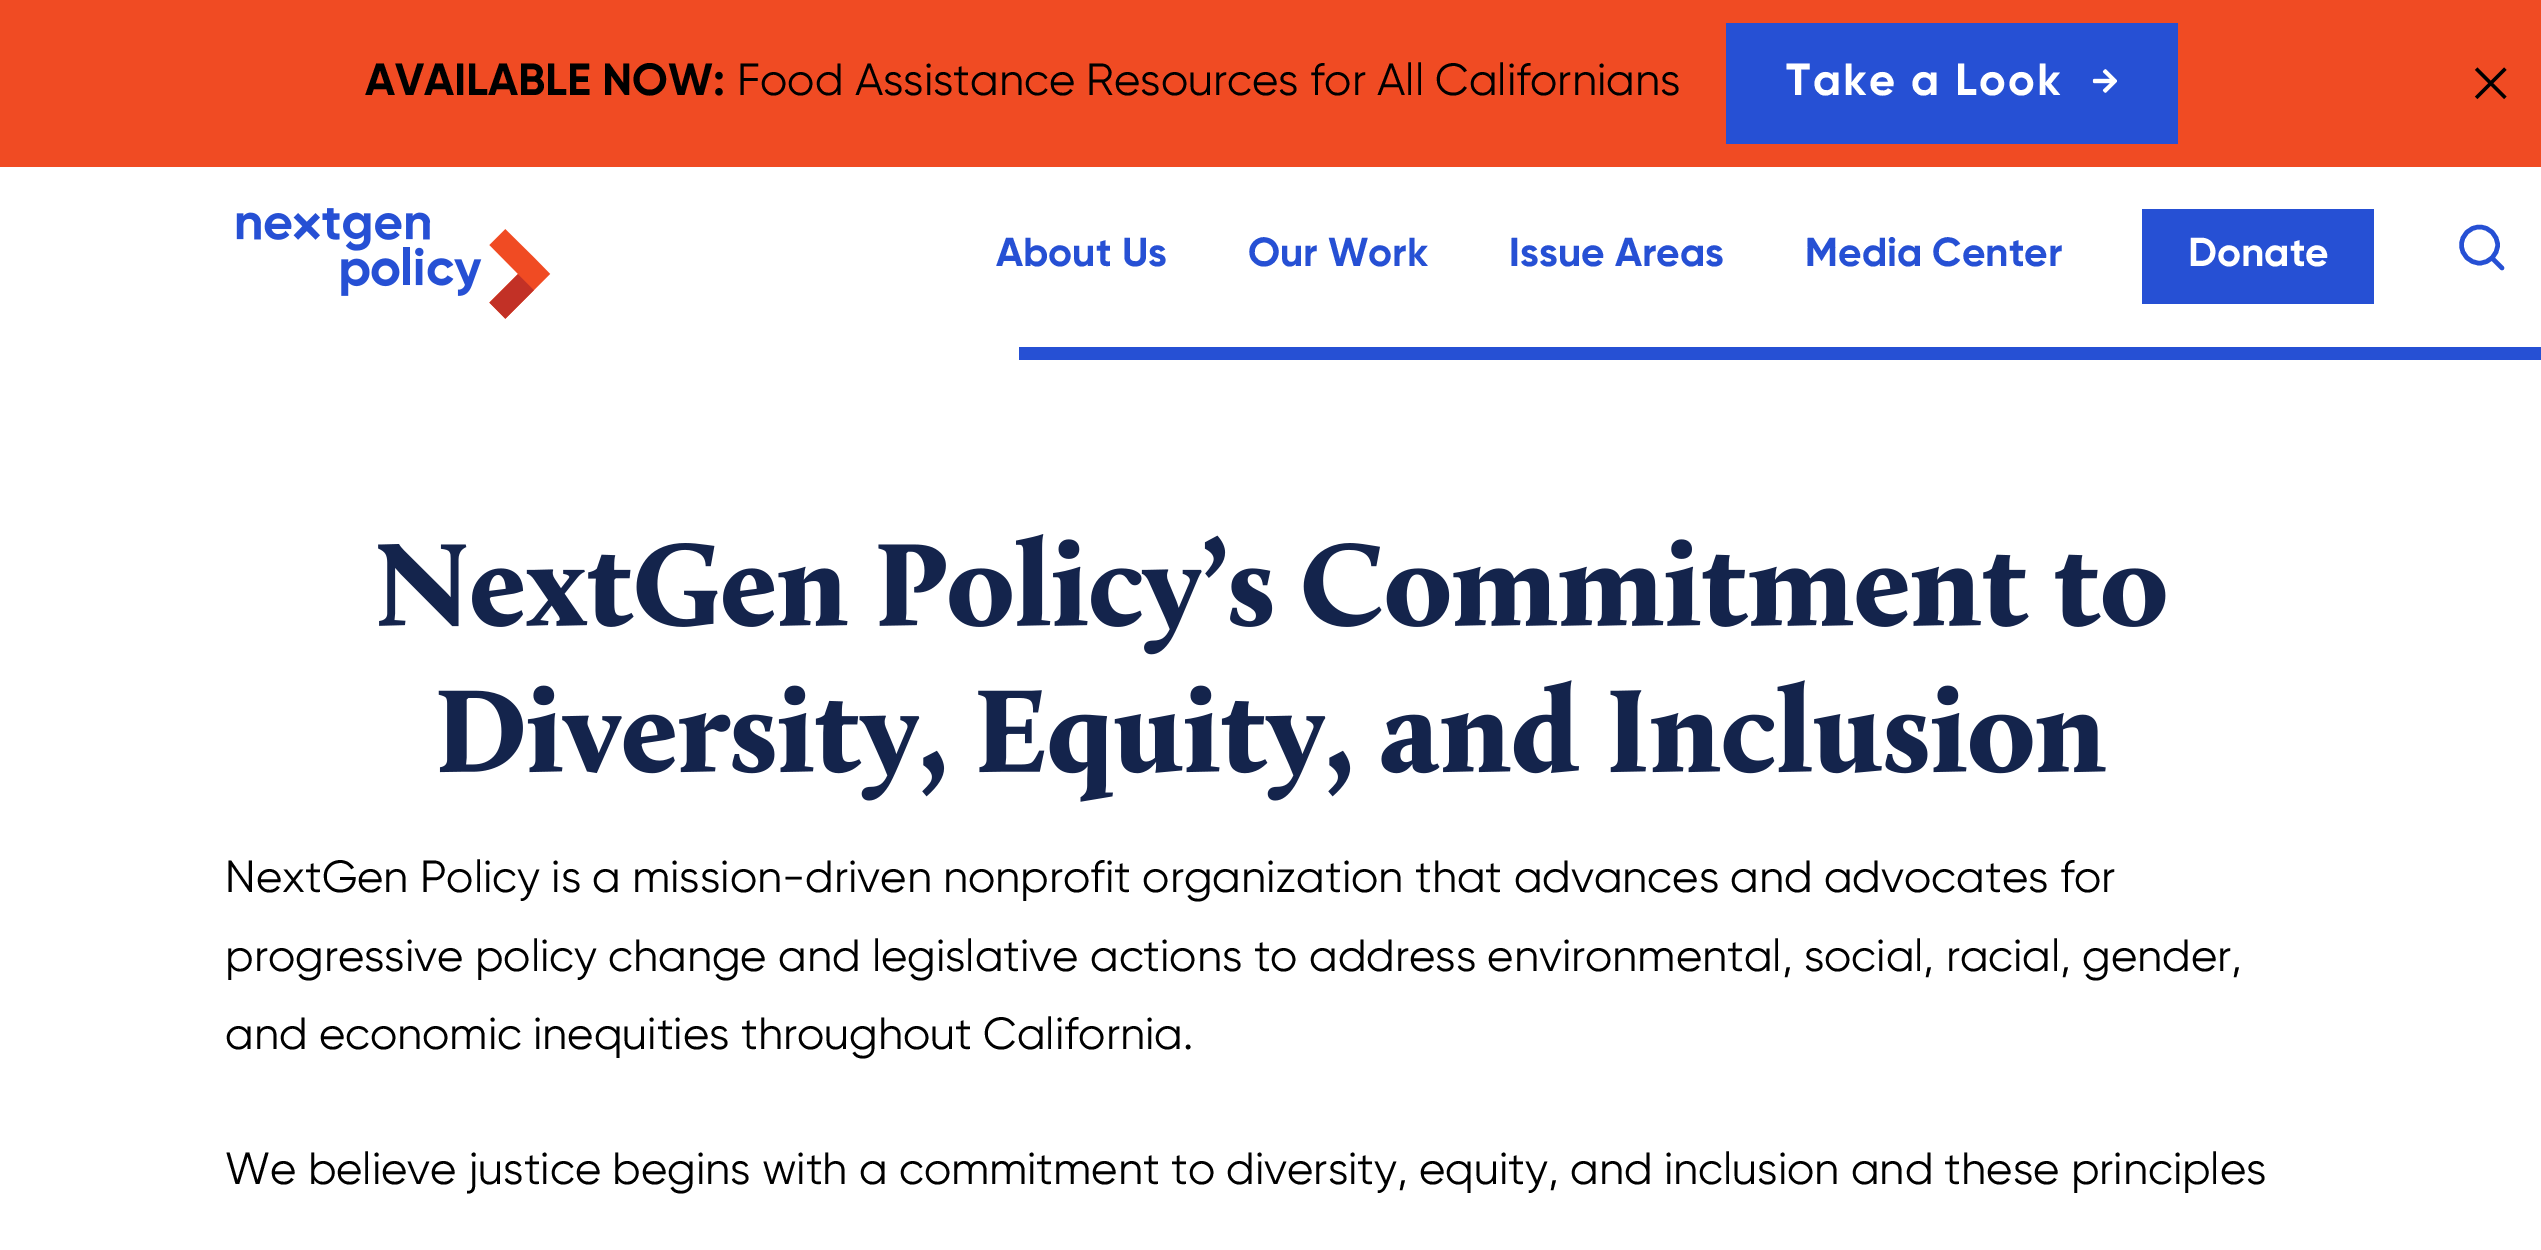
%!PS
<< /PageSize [2541 1250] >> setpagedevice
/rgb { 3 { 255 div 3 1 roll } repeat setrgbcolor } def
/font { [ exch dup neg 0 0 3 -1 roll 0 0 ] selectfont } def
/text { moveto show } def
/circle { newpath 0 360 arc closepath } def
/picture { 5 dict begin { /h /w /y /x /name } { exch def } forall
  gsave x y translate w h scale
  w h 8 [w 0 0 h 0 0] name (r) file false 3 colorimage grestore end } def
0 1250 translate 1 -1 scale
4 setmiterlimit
255 255 255 rgb
0 0 2541 1250 rectfill
240 75 35 rgb
0 0 2541 167 rectfill
38 80 212 rgb
1726 23 452 121 rectfill
(img_01.rgb) 2092 69 25 24 picture
(img_02.rgb) 2474 67 33 33 picture
(img_03.rgb) 236 208 315 111 picture
1019 347 1522 13 rectfill
2142 209 232 95 rectfill
4.5 setlinewidth
2479.5 245 18 circle stroke
1 setlinecap
1 setlinejoin
2502 268 moveto -10 -10 rlineto stroke
(img_04.rgb) 378 534 1788 121 picture
(img_05.rgb) 438 680 1668 122 picture
/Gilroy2-Regular 45 font
0 0 0 rgb
(AVAILABLE NOW:) 365 95 text
/Gilroy-Regular 45 font
(Food Assistance Resources for All Californians) 737 95 text
/Gilroy2-Regular 45 font
255 255 255 rgb
1786 95 moveto 2.25 0 (Take a Look) ashow
/Gilroy2-Regular 40.5 font
38 80 212 rgb
(About Us) 996 266 text
(Our Work) 1248 266 text
(Issue Areas) 1509 266 text
(Media Center) 1805 266 text
255 255 255 rgb
(Donate) 2188 266 text
/Gilroy-Regular 45 font
0 0 0 rgb
(NextGen Policy is a mission-driven nonprofit organization that advances and advocates for) 225 892 text
(progressive policy change and legislative actions to address environmental, social, racial, gender,) 225 971 text
(and economic inequities throughout California.) 225 1049 text
(We believe justice begins with a commitment to diversity, equity, and inclusion and these principles) 225 1184 text
showpage
